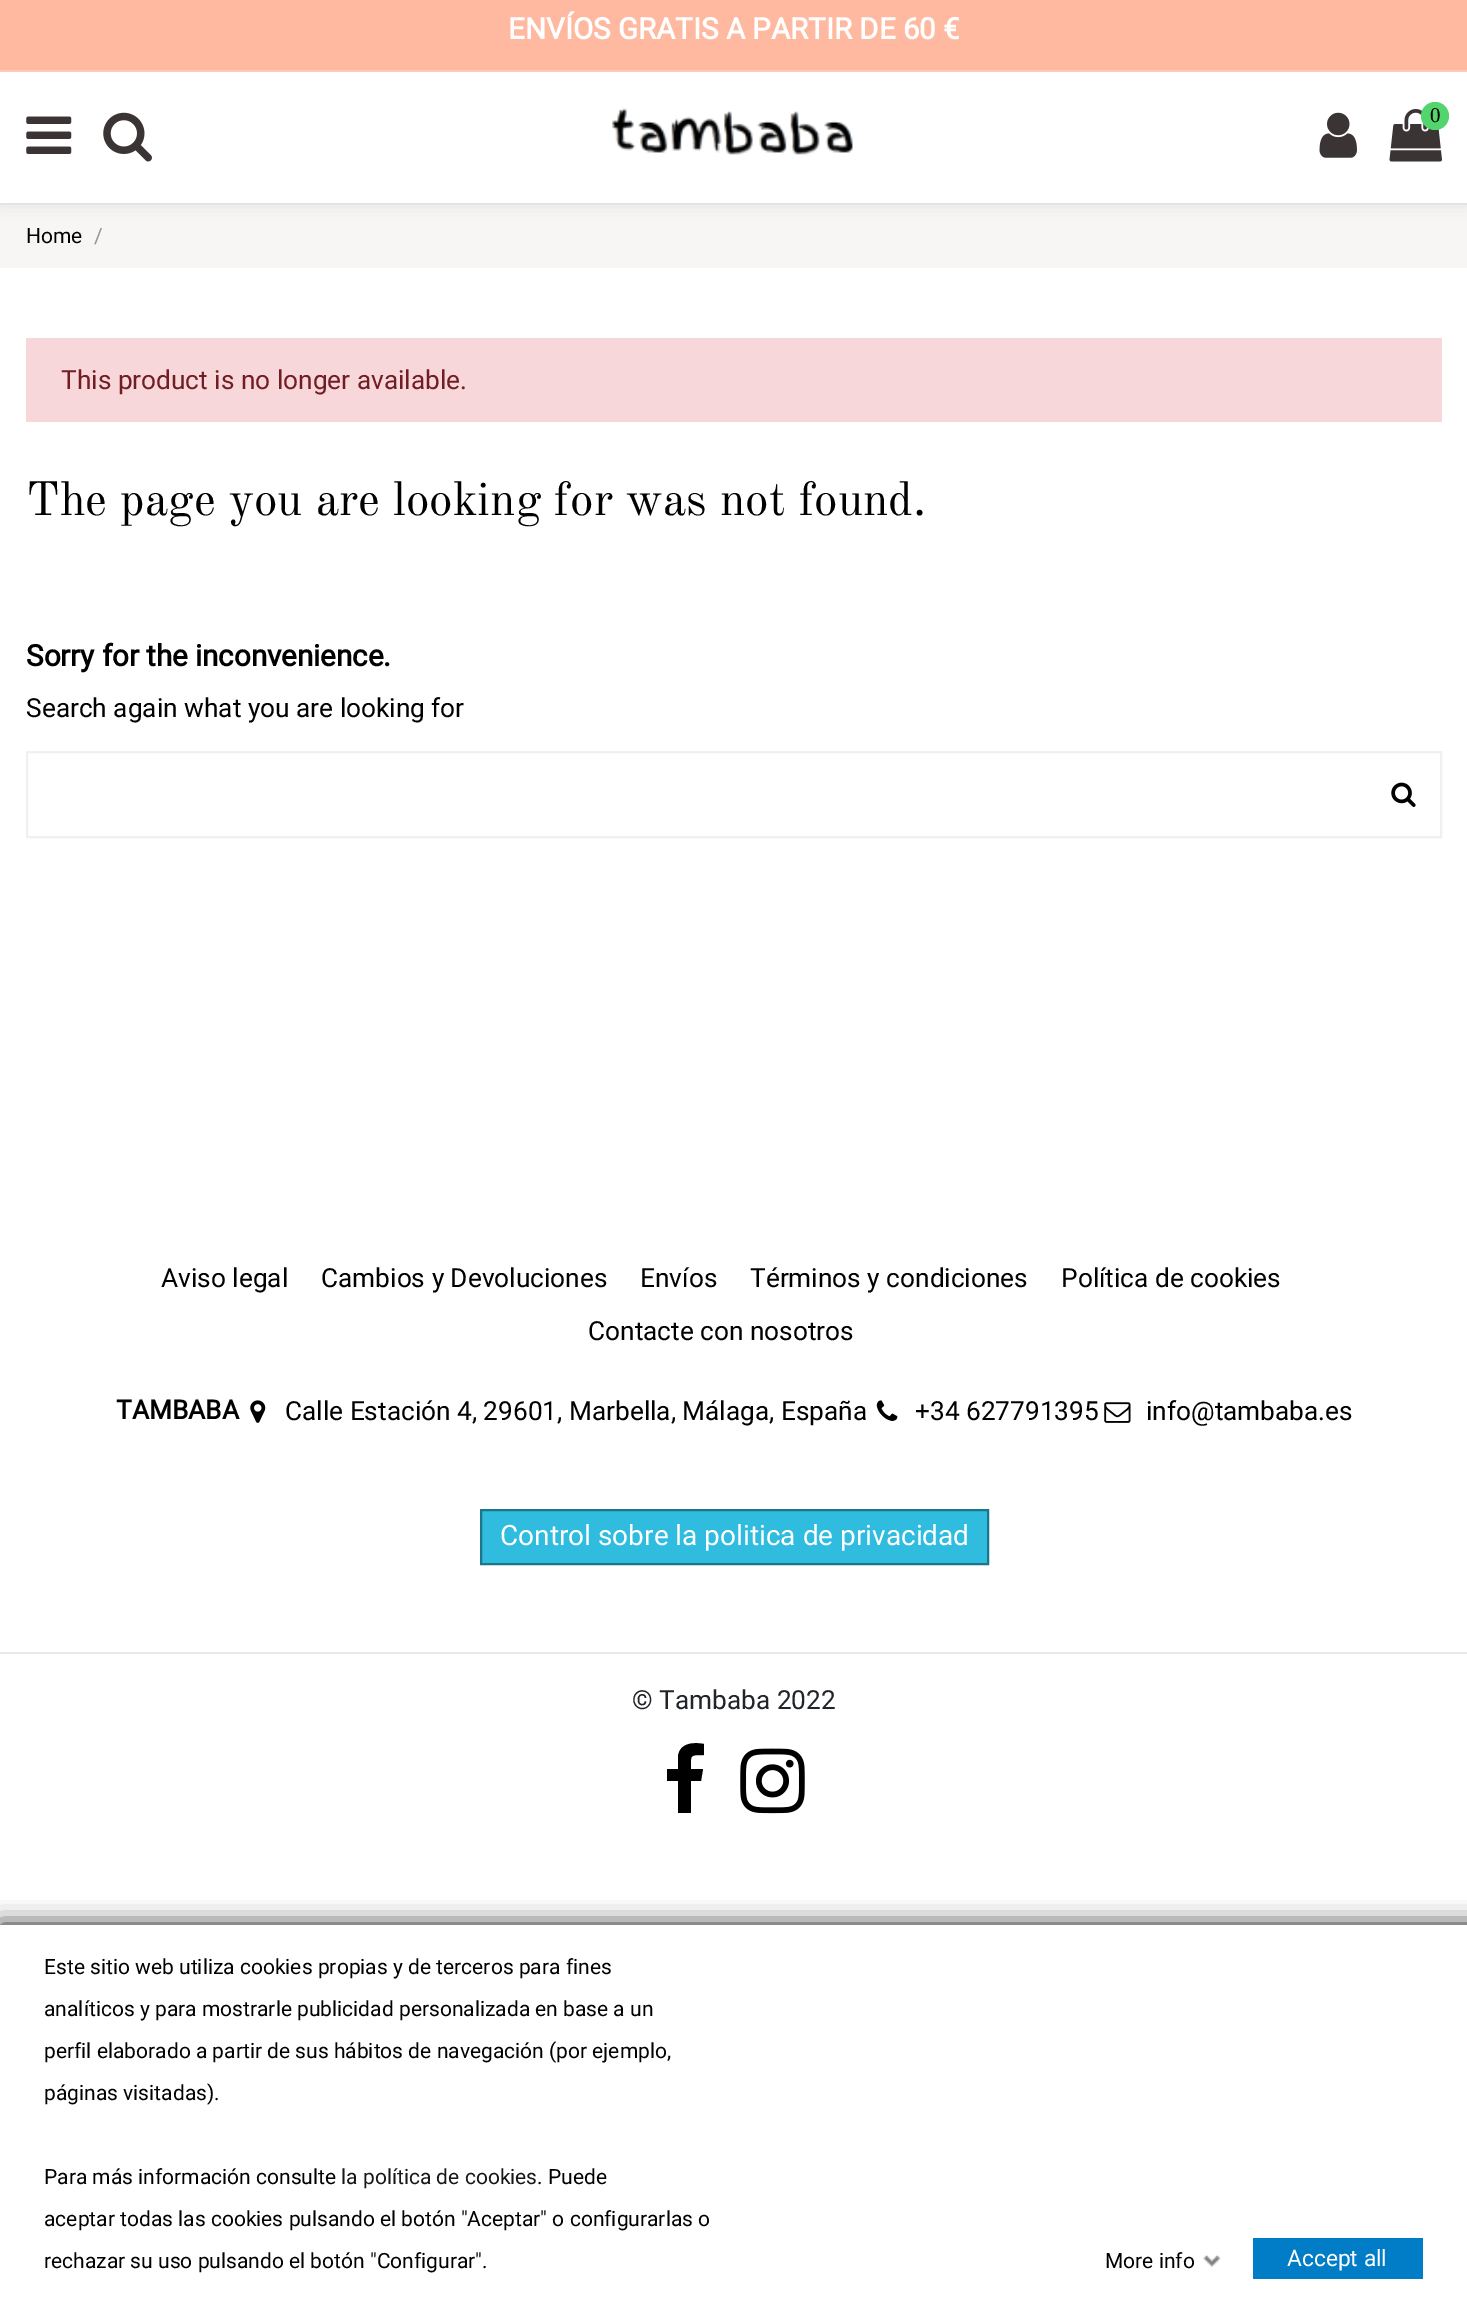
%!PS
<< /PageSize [1467 2311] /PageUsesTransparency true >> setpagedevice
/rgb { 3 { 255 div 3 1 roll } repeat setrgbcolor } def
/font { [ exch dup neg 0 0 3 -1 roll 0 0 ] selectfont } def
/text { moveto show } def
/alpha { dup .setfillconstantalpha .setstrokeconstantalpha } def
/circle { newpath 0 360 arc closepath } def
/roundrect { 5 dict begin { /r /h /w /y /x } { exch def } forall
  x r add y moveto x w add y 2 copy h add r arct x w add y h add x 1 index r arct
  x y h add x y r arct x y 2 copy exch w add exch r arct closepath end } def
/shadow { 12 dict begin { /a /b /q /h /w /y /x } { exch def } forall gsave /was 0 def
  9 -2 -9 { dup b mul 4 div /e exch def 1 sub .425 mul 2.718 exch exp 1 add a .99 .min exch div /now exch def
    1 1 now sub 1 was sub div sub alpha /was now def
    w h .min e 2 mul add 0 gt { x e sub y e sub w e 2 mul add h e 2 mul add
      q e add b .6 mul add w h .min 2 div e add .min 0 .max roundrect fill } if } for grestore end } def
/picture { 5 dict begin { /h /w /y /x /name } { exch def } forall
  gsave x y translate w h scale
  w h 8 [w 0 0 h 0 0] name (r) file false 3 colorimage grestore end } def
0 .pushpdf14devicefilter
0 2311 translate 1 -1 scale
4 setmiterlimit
255 255 255 rgb
0 0 1467 2311 rectfill
247 246 245 rgb
0 205 1467 63 rectfill
61 57 57 rgb
0 -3 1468 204 0 9.5 0.17 shadow
255 185 161 rgb
0 0 1467 70 rectfill
255 201 183 rgb
0 70 1467 2 rectfill
255 255 255 rgb
0 72 1467 131 rectfill
227 227 227 rgb
0 203 1467 2 rectfill
(img_01.rgb) 26 116 46 38 picture
(img_02.rgb) 103 112 49 50 picture
(img_03.rgb) 612 108 241 47 picture
(img_04.rgb) 1319 112 38 46 picture
(img_05.rgb) 1389 109 53 53 picture
83 213 109 rgb
1435 116 14 circle fill
248 215 218 rgb
26 338 1416 84 rectfill
240 240 240 rgb
2 setlinewidth
27 752 1414 85 rectstroke
(img_06.rgb) 1391 782 25 25 picture
(img_07.rgb) 250 1400 16 23 picture
(img_08.rgb) 876 1400 22 21 picture
(img_09.rgb) 1104 1402 27 21 picture
47 188 223 rgb
481 1510 moveto 507 0 rlineto 0 54 rlineto -507 0 rlineto closepath gsave fill grestore
27 118 139 rgb
stroke
232 232 232 rgb
0 1652 1467 2 rectfill
0 0 0 rgb
704 1744 moveto 0 11 rlineto -15 0 -13 0 -13 14 rcurveto 12 0 rlineto -2 12 rlineto -10 0 rlineto 0 32 rlineto -13 0 rlineto 0 -32 rlineto -11 0 rlineto 0 -12 rlineto 11 0 rlineto 0 -13 rlineto 2 -13 15 -14 26 -12 rcurveto closepath fill
(img_10.rgb) 740 1748 65 66 picture
gsave
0 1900 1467 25 rectclip
18 18 18 rgb
0 1925 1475 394 0 12 1 shadow
grestore
(img_11.rgb) 1203 2255 18 12 picture
0 125 198 rgb
1253 2238 170 41 rectfill
/Roboto-Bold 29.5 font
255 255 255 rgb
(ENVÍOS GRATIS A PARTIR DE 60 €) 508 39 text
/LiberationSerif-Regular 21 font
0 0 0 rgb
(0) 1430 122 text
/Roboto-Regular 21 font
(Home) 26 243 text
148 148 147 rgb
(/) 94 243 text
/Roboto-Regular 26.25 font
114 28 36 rgb
(This product is no longer available.) 61 389 text
/OldStandardTT-Regular 47.25 font
0 0 0 rgb
(The page you are looking for was not found.) 26 515 text
/Roboto-Bold 29.5 font
(Sorry for the inconvenience.) 26 666 text
/Roboto-Regular 26.25 font
(Search again what you are looking for) 26 717 text
(Aviso legal) 161 1287 text
(Cambios y Devoluciones) 321 1287 text
(Envíos) 640 1287 text
(Términos y condiciones) 750 1287 text
(Política de cookies) 1061 1287 text
(Contacte con nosotros) 588 1340 text
/Roboto-Bold 26.25 font
(TAMBABA) 116 1419 text
/Roboto-Regular 26.25 font
(Calle Estación 4, 29601, Marbella, Málaga, España) 285 1420 text
(+34 627791395) 915 1420 text
(info@tambaba.es) 1146 1420 text
/Roboto-Regular 28 font
255 255 255 rgb
(Control sobre la politica de privacidad) 500 1545 text
/Roboto-Regular 26.25 font
33 37 41 rgb
(© Tambaba 2022) 632 1709 text
/Roboto-Regular 21 font
0 0 0 rgb
(Este sitio web utiliza cookies propias y de terceros para fines) 44 1974 text
(analíticos y para mostrarle publicidad personalizada en base a un) 44 2016 text
(perfil elaborado a partir de sus hábitos de navegación \(por ejemplo,) 44 2058 text
(páginas visitadas\).) 44 2100 text
(Para más información consulte) 44 2184 text
23 23 23 rgb
(la política de cookies) 341 2184 text
0 0 0 rgb
(. Puede) 537 2184 text
(aceptar todas las cookies pulsando el botón "Aceptar" o configurarlas o) 44 2226 text
(rechazar su uso pulsando el botón "Configurar".) 44 2268 text
(More info) 1105 2268 text
/Roboto-Regular 22.75 font
255 255 255 rgb
(Accept all) 1287 2266 text
.poppdf14devicefilter showpage
